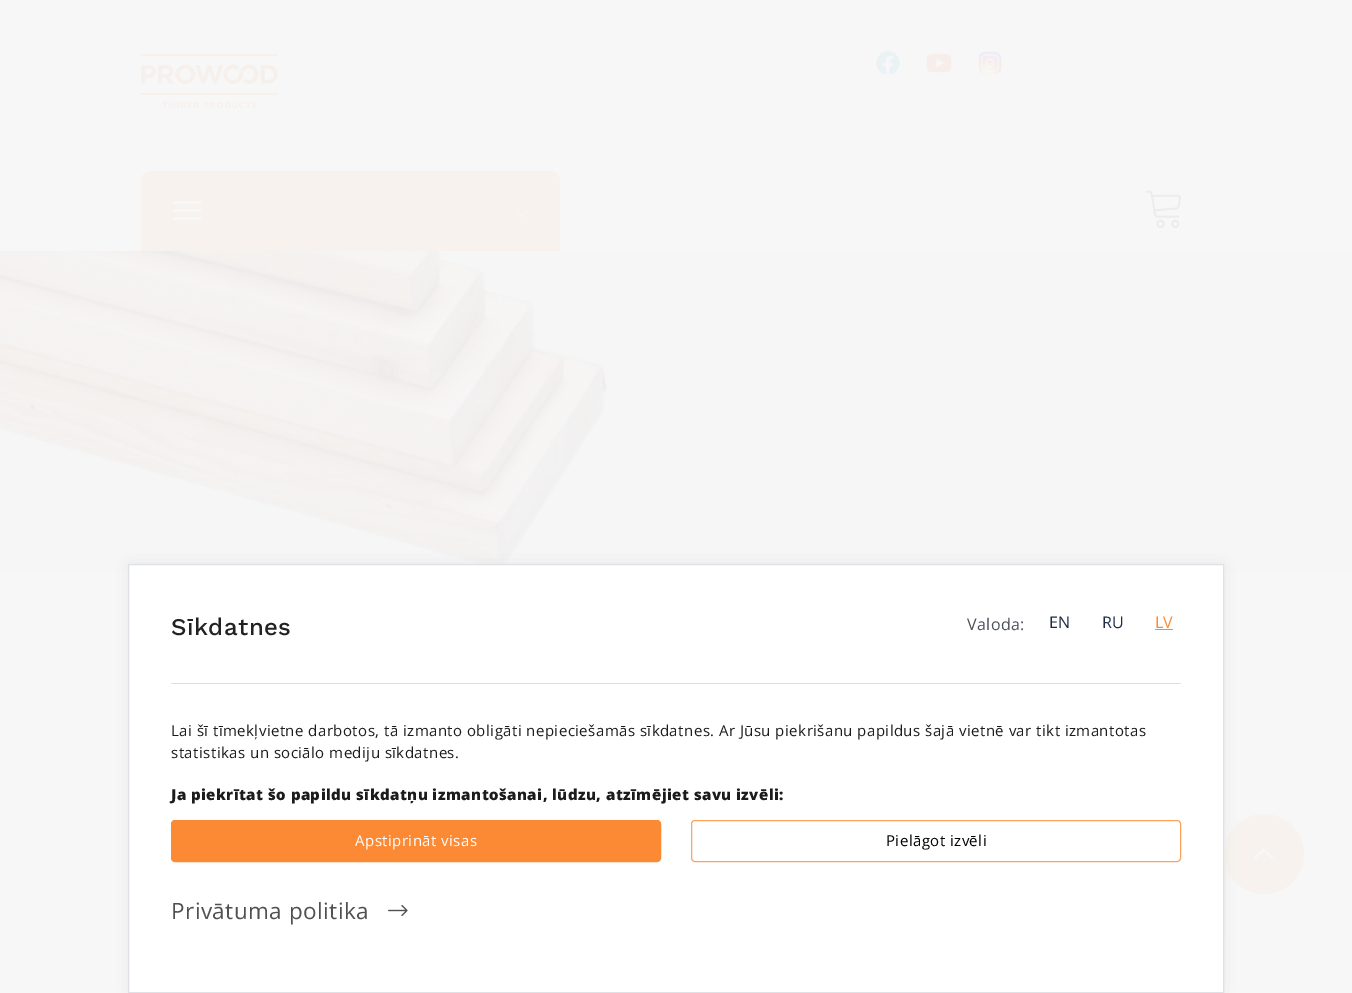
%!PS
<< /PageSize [1352 993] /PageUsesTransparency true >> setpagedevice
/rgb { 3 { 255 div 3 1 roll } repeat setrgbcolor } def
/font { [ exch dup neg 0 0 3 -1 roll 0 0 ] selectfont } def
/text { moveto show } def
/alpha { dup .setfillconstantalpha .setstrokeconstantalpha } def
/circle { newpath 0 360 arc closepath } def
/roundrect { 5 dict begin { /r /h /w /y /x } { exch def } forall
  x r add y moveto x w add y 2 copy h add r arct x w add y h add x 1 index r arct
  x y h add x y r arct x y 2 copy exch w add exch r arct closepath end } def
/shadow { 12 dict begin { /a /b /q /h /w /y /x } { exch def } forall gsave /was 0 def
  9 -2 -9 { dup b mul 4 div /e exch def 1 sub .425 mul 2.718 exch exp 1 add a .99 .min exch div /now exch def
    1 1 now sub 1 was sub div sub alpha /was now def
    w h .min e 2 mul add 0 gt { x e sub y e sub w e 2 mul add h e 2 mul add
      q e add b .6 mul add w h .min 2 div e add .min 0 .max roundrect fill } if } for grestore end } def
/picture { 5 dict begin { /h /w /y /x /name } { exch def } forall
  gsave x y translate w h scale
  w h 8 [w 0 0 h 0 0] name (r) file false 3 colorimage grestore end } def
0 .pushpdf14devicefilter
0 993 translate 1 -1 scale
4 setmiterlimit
247 247 247 rgb
0 0 1352 993 rectfill
(img_01.rgb) 141 54 137 54 picture
(img_02.rgb) 876 51 24 24 picture
(img_03.rgb) 926 53 26 20 picture
(img_04.rgb) 978 51 24 24 picture
247 242 237 rgb
151 171 moveto 399 0 rlineto 5.5 0 10 4.5 10 10 rcurveto 0 70 rlineto -419 0 rlineto 0 -70 rlineto 0 -5.5 4.5 -10 10 -10 rcurveto closepath fill
(img_05.rgb) 173 201 29 20 picture
(img_06.rgb) 516 210 12 8 picture
(img_07.rgb) 1146 190 36 39 picture
(img_08.rgb) 0 251 1352 320 picture
842 864 384 74 5 roundrect fill
1264 854 40 circle fill
(img_09.rgb) 1254 848 20 12 picture
216 218 221 rgb
128 564 1096 429 0 7.5 0.5 shadow
255 255 255 rgb
128.5 564.5 moveto 1095 0 rlineto 0 428 rlineto -1095 0 rlineto closepath gsave fill grestore
222 226 230 rgb
stroke
252 138 53 rgb
1155 629 18 1 rectfill
219 222 228 rgb
171 683 1010 1 rectfill
252 138 53 rgb
171.5 820.5 489 41 3.5 roundrect gsave fill grestore
stroke
254 163 94 rgb
691.5 820.5 489 41 3.5 roundrect stroke
(img_10.rgb) 388 905 20 11 picture
/WorkSans-Medium 24 font
34 34 34 rgb
171 635 moveto 0.45 0 (Sīkdatnes) ashow
/OpenSans-Regular 16 font
76 80 89 rgb
967 630 moveto 0.45 0 (Valoda:) ashow
31 42 68 rgb
(EN) 1049 628 text
(RU) 1102 628 text
252 138 53 rgb
(LV) 1155 628 text
/OpenSans-Regular 15 font
28 28 28 rgb
171 736 moveto 0.45 0 (Lai šī tīmekļvietne darbotos, tā izmanto obligāti nepieciešamās sīkdatnes. Ar Jūsu piekrišanu papildus šajā vietnē var tikt izmantotas) ashow
171 758 moveto 0.45 0 (statistikas un sociālo mediju sīkdatnes.) ashow
/OpenSans-ExtraBold 15 font
171 800 moveto 0.45 0 (Ja piekrītat šo papildu sīkdatņu izmantošanai, lūdzu, atzīmējiet savu izvēli:) ashow
/OpenSans-Regular 15 font
255 255 255 rgb
355 846 moveto 0.45 0 (Apstiprināt visas) ashow
0 0 0 rgb
886 846 moveto 0.45 0 (Pielāgot izvēli) ashow
/OpenSans-Regular 22.5 font
80 80 80 rgb
171 919 moveto 0.45 0 (Privātuma politika) ashow
.poppdf14devicefilter showpage
